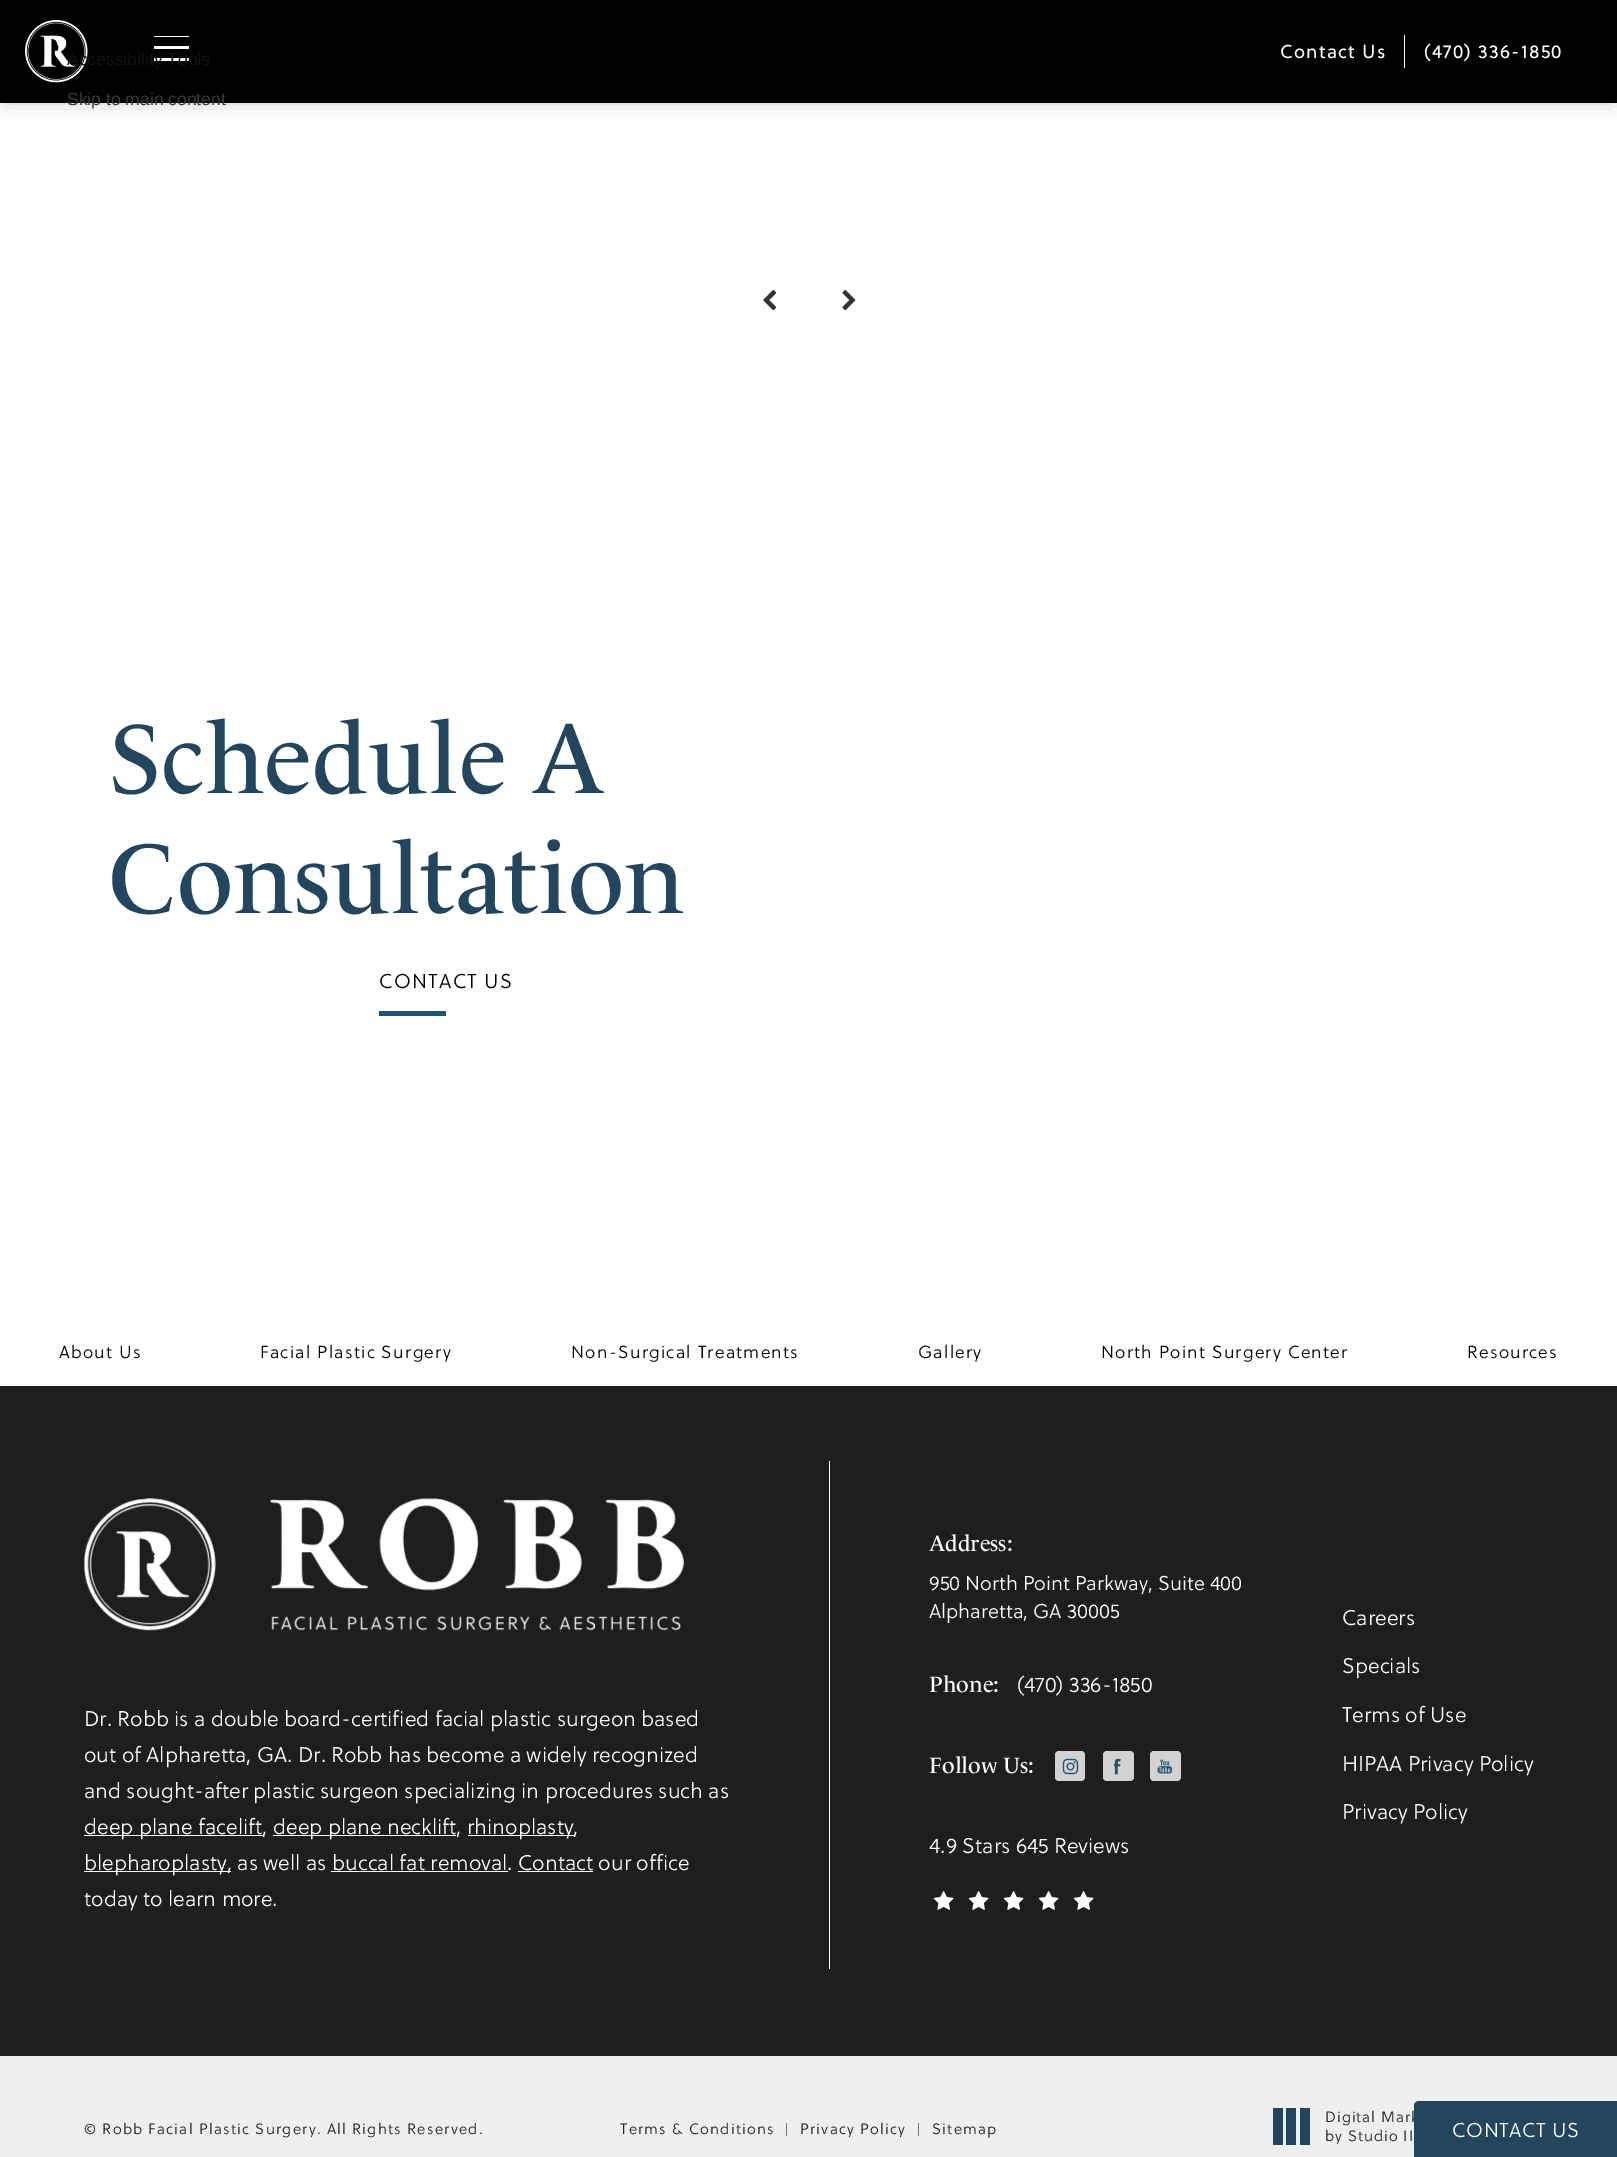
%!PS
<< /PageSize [1617 2157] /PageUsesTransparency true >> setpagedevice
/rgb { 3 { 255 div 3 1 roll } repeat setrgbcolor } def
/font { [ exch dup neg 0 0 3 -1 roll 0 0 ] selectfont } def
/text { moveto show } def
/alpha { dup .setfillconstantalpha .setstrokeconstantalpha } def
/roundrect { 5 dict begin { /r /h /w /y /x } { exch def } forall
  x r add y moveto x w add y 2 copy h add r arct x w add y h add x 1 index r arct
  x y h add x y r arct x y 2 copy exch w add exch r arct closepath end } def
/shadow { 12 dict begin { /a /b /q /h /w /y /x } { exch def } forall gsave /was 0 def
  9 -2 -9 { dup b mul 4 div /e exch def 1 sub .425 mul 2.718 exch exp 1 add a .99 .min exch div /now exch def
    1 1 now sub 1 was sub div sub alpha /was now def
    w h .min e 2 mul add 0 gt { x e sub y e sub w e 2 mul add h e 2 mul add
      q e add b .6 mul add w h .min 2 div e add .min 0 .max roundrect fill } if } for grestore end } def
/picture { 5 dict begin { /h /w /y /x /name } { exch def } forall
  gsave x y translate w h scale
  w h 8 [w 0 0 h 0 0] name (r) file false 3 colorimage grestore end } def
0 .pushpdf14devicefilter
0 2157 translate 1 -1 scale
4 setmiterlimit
255 255 255 rgb
0 0 1617 2157 rectfill
20 20 20 rgb
5 5 1608 93 0 9.5 0.4 shadow
0 0 0 rgb
0 0 1617 103 rectfill
(img_01.rgb) 25 20 63 63 picture
255 255 255 rgb
154 36 35 1 rectfill
154 46 35 3 rectfill
154 58 35 3 rectfill
1404 35 1 33 rectfill
(img_02.rgb) 763 290 14 21 picture
(img_03.rgb) 842 290 14 21 picture
33 83 118 rgb
379 1011 67 5 rectfill
30 30 30 rgb
0 1386 1617 670 rectfill
(img_04.rgb) 84 1498 600 133 picture
255 255 255 rgb
84 1835 179 1 rectfill
273 1835 183 1 rectfill
468 1835 106 1 rectfill
84 1871 147 1 rectfill
331 1871 177 1 rectfill
518 1871 75 1 rectfill
829 1461 1 508 rectfill
210 210 210 rgb
1055 1751 30 30 4 roundrect fill
(img_05.rgb) 1062 1758 17 17 picture
1103 1751 31 30 4 roundrect fill
(img_06.rgb) 1114 1758 7 17 picture
1150 1751 31 30 4 roundrect fill
(img_07.rgb) 1157 1759 15 15 picture
(img_08.rgb) 933 1891 21 19 picture
(img_08.rgb) 968 1891 21 19 picture
(img_08.rgb) 1003 1891 21 19 picture
(img_08.rgb) 1038 1891 21 19 picture
(img_08.rgb) 1073 1891 21 19 picture
239 239 239 rgb
0 2056 1617 101 rectfill
119 119 119 rgb
786 2123 1 13 rectfill
918 2123 1 13 rectfill
35 69 94 rgb
1286 2108 10 37 rectfill
1273 2108 10 37 rectfill
1300 2108 10 37 rectfill
/LiberationSans-Regular 17.5 font
18 18 18 rgb
(Accessibility Tools) 67 65 text
56 56 56 rgb
(Skip to main content) 67 105 text
/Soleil-Regular 18.75 font
255 255 255 rgb
1280 58 moveto 1.25 0 (Contact Us) ashow
1424 58 moveto 1.25 0 (\(470\) 336-1850) ashow
/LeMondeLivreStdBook-Regular 100 font
35 69 94 rgb
(Schedule A) 109 793 text
(Consultation) 109 913 text
/Soleil-Light 20 font
0 0 0 rgb
379 988 moveto 1.25 0 (CONTACT US) ashow
/Soleil-Light 17.5 font
59 1358 moveto 1.25 0 (About Us) ashow
260 1358 moveto 1.25 0 (Facial Plastic Surgery) ashow
571 1358 moveto 1.25 0 (Non-Surgical Treatments) ashow
918 1358 moveto 1.25 0 (Gallery) ashow
1101 1358 moveto 1.25 0 (North Point Surgery Center) ashow
1467 1358 moveto 1.25 0 (Resources) ashow
/Soleil-Light 21.25 font
255 255 255 rgb
(Dr. Robb is a double board-certified facial plastic surgeon based) 84 1726 text
(out of Alpharetta, GA. Dr. Robb has become a widely recognized) 84 1762 text
(and sought-after plastic surgeon specializing in procedures such as) 84 1798 text
(deep plane facelift,) 84 1834 text
(deep plane necklift,) 273 1834 text
(rhinoplasty,) 467 1834 text
(blepharoplasty, as well as buccal fat removal. Contact our office) 84 1870 text
(today to learn more.) 84 1906 text
/LeMondeLivreStdBook-Regular 22.5 font
(Address:) 929 1551 text
/Soleil-Light 20 font
(950 North Point Parkway, Suite 400) 929 1590 text
(Alpharetta, GA 30005) 929 1618 text
/LeMondeLivreStdBook-Regular 22.5 font
(Phone:) 929 1692 text
/Soleil-Light 21.25 font
(\(470\) 336-1850) 1017 1692 text
/LeMondeLivreStdBook-Regular 22.5 font
(Follow Us:) 929 1773 text
/Soleil-Light 21.25 font
(4.9 Stars 645 Reviews) 929 1853 text
(Careers) 1342 1625 text
(Specials) 1342 1673 text
(Terms of Use) 1342 1722 text
(HIPAA Privacy Policy) 1342 1771 text
(Privacy Policy) 1342 1819 text
/Soleil-Light 15 font
34 34 34 rgb
84 2134 moveto 1.25 0 (© Robb Facial Plastic Surgery. All Rights Reserved.) ashow
620 2134 moveto 1.25 0 (Terms & Conditions) ashow
800 2134 moveto 1.25 0 (Privacy Policy) ashow
932 2134 moveto 1.25 0 (Sitemap) ashow
1325 2122 moveto 1 0 (Digital Mark) ashow
1325 2141 moveto 1 0 (by Studio II) ashow
35 69 94 rgb
1419 2101 moveto 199 0 rlineto 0 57 rlineto -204 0 rlineto 0 -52 rlineto 0 -3 2 -5 5 -5 rcurveto closepath fill
/Soleil-Light 20 font
255 255 255 rgb
1452 2137 moveto 0.6 0 (CONTACT US) ashow
.poppdf14devicefilter showpage
